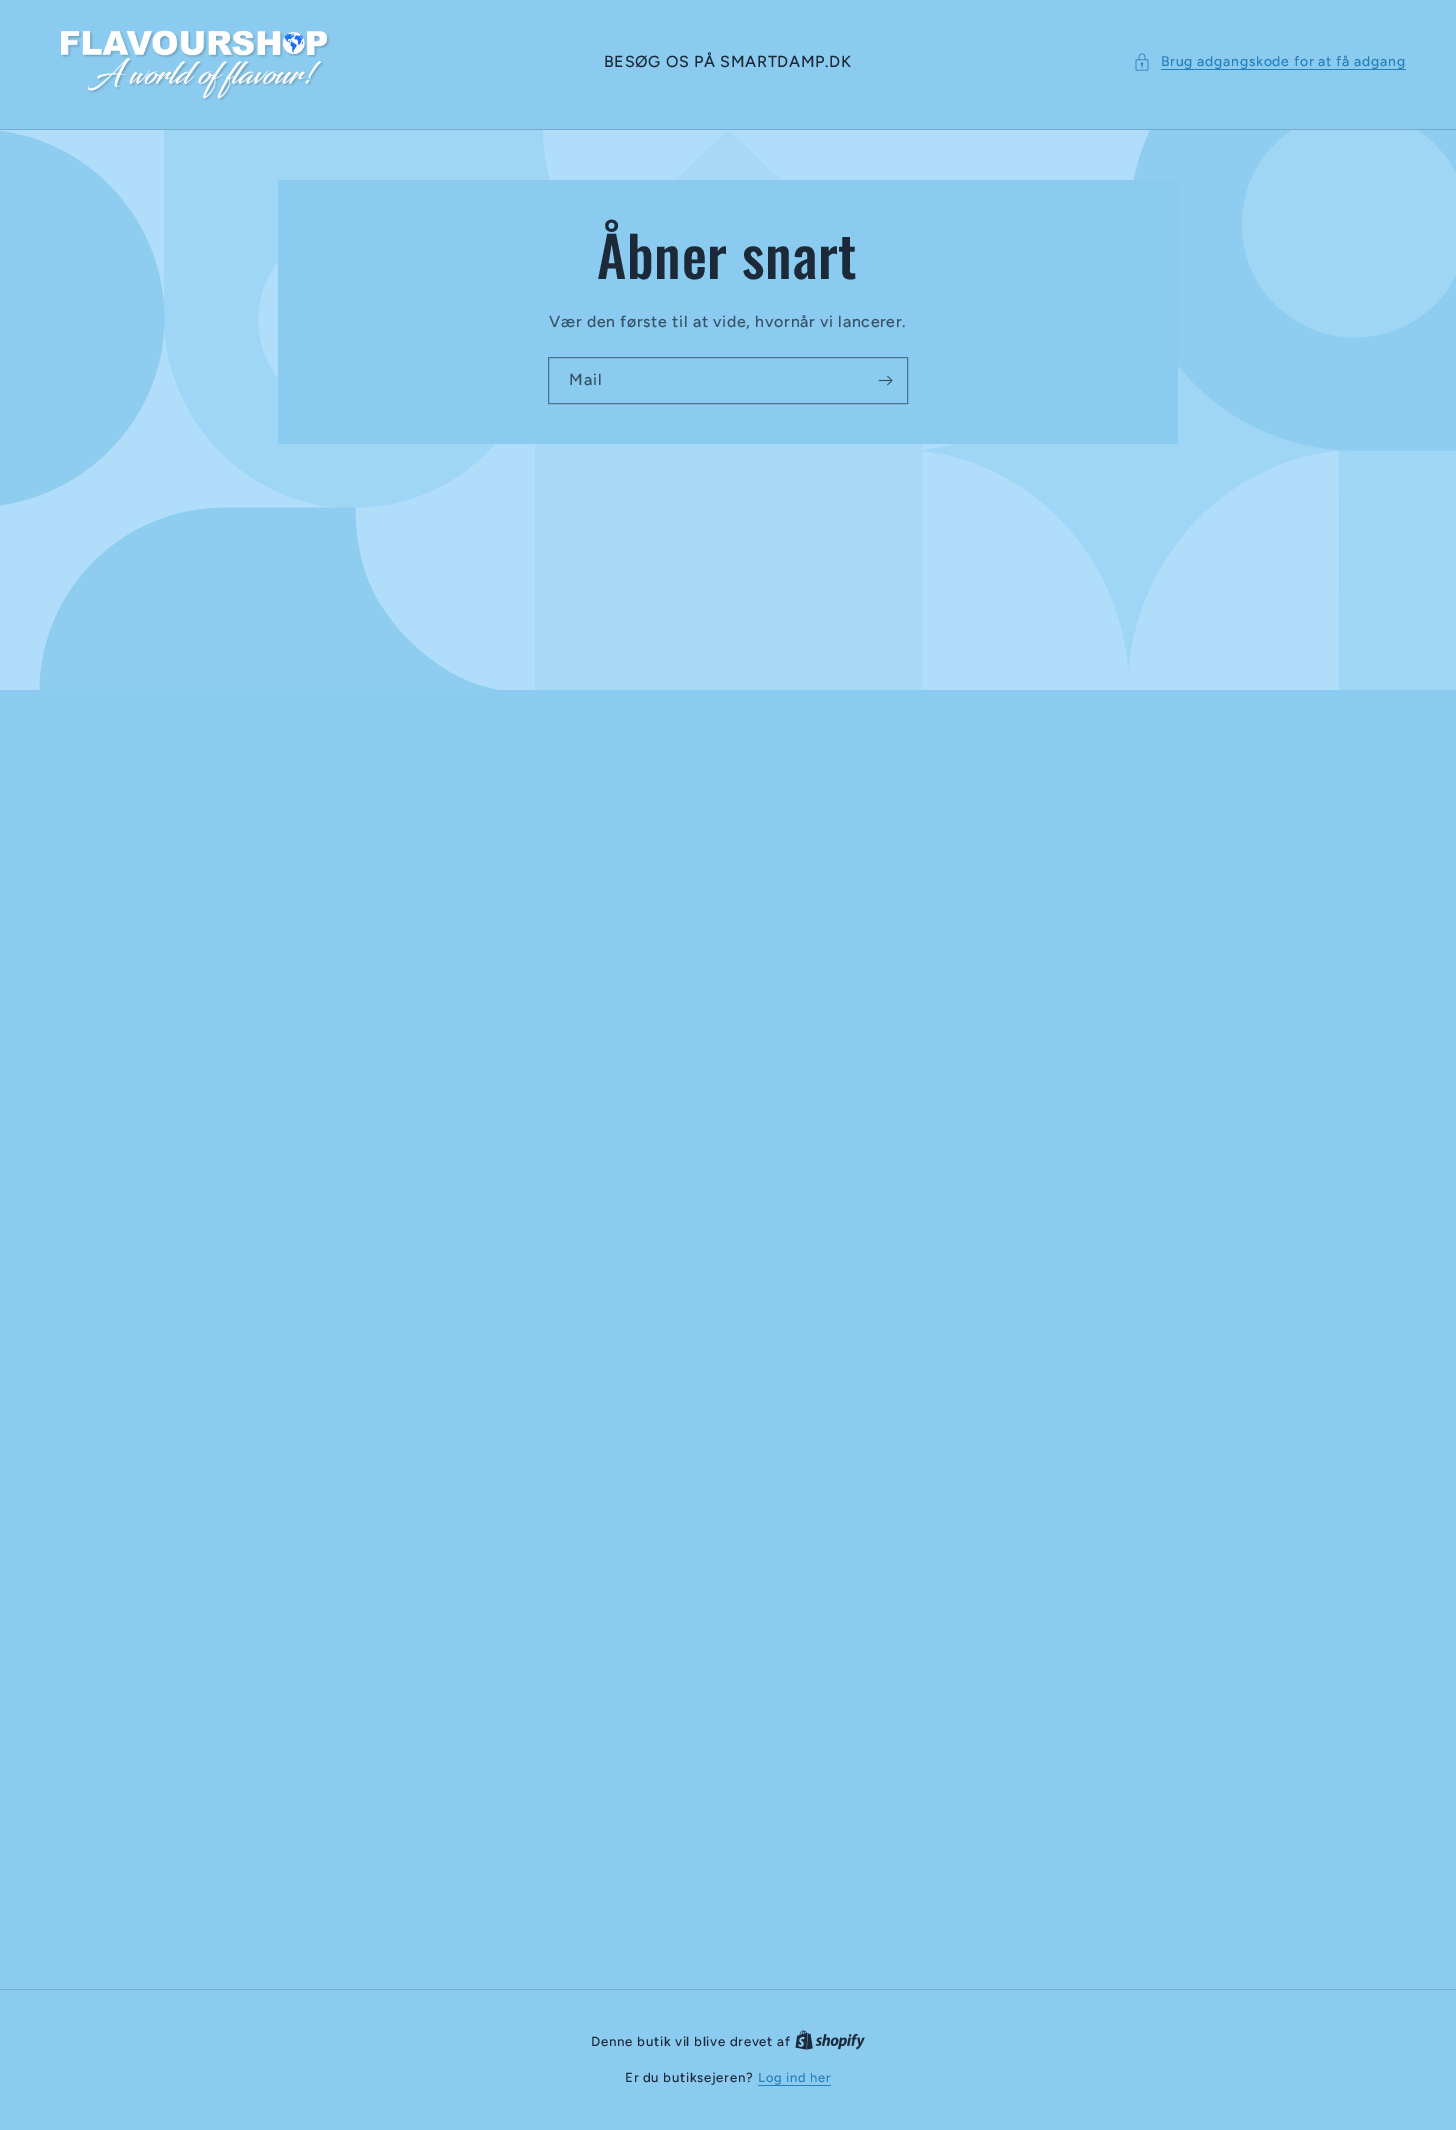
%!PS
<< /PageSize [1456 2130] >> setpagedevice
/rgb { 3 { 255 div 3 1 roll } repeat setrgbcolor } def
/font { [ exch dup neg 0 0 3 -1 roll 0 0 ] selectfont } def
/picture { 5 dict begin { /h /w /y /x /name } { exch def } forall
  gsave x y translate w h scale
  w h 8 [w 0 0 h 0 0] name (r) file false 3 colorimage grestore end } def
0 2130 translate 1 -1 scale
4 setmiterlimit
139 203 239 rgb
0 0 1456 2130 rectfill
(img_01.rgb) 61 30 269 71 picture
(img_02.rgb) 1135 53 14 18 picture
40 128 185 rgb
1161 69 245 1 rectfill
117 171 203 rgb
0 129 1456 1 rectfill
(img_03.rgb) 0 130 1456 560 picture
139 203 239 rgb
278 180 900 264 rectfill
77 114 139 rgb
548.5 357.5 359 46 rectstroke
(img_04.rgb) 878 375 15 11 picture
117 171 203 rgb
0 1989 1456 1 rectfill
(img_05.rgb) 795 2030 70 20 picture
40 128 185 rgb
758 2085 73 1 rectfill
/Figtree-Medium 16 font
27 41 57 rgb
604 67 moveto 0.7 0 (BESØG OS PÅ SMARTDAMP.DK) ashow
/Figtree-Medium 14 font
40 128 185 rgb
1161 66 moveto 0.7 0 (Brug adgangskode for at få adgang) ashow
/Oswald-Medium 56 font
27 41 57 rgb
597 279 moveto 0.75 0 (Åbner snart) ashow
/Figtree-Medium 16 font
55 82 103 rgb
549 327 moveto 0.7 0 (Vær den første til at vide, hvornår vi lancerer.) ashow
569 385 moveto 1 0 (Mail) ashow
/Figtree-Medium 13.3 font
27 41 57 rgb
591 2046 moveto 0.7 0 (Denne butik vil blive drevet af) ashow
625 2082 moveto 0.7 0 (Er du butiksejeren?) ashow
/Figtree-Medium 13 font
40 128 185 rgb
758 2082 moveto 0.7 0 (Log ind her) ashow
showpage
